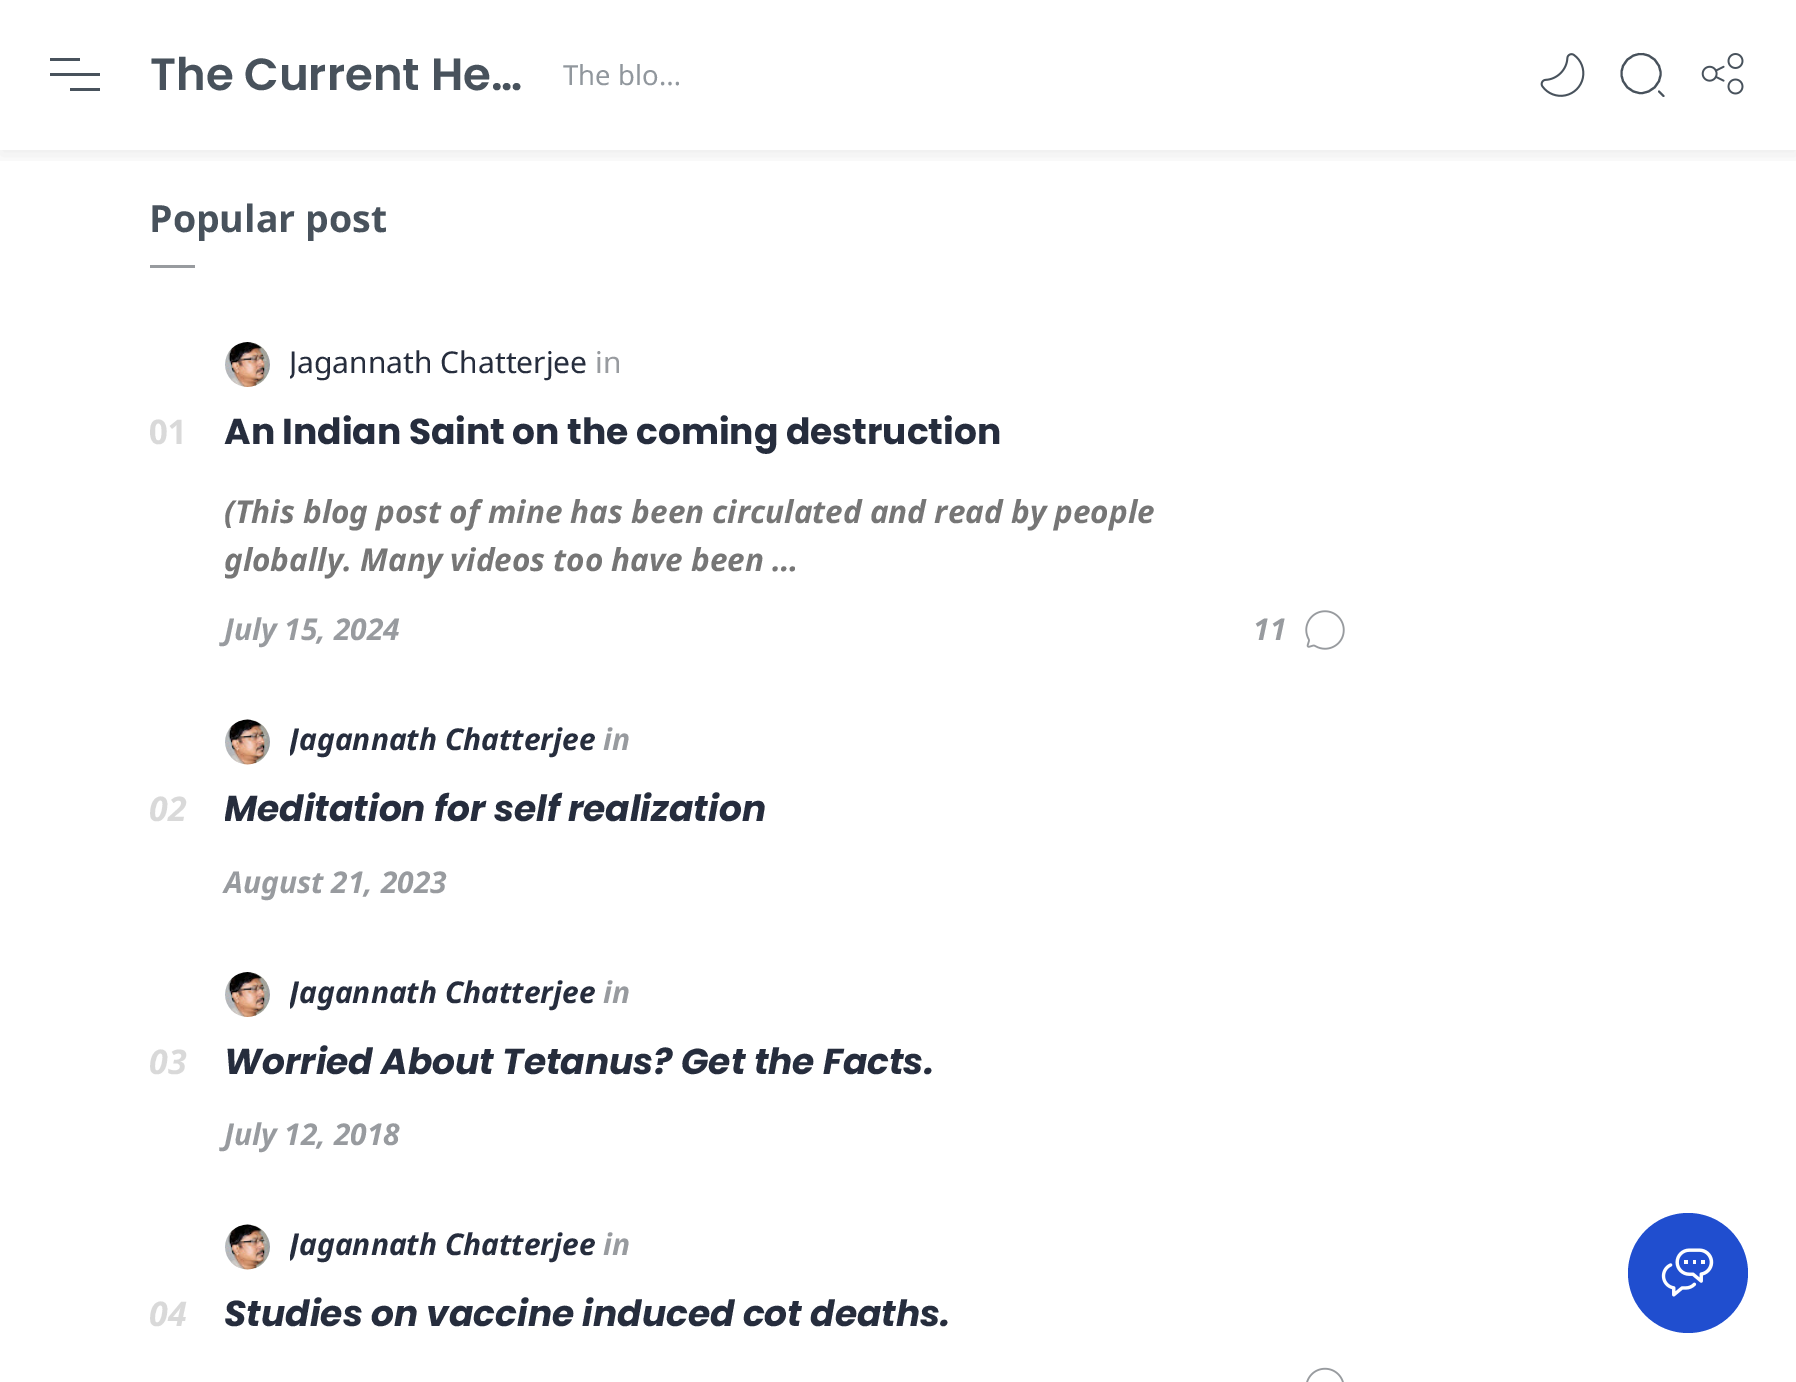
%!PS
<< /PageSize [1796 1382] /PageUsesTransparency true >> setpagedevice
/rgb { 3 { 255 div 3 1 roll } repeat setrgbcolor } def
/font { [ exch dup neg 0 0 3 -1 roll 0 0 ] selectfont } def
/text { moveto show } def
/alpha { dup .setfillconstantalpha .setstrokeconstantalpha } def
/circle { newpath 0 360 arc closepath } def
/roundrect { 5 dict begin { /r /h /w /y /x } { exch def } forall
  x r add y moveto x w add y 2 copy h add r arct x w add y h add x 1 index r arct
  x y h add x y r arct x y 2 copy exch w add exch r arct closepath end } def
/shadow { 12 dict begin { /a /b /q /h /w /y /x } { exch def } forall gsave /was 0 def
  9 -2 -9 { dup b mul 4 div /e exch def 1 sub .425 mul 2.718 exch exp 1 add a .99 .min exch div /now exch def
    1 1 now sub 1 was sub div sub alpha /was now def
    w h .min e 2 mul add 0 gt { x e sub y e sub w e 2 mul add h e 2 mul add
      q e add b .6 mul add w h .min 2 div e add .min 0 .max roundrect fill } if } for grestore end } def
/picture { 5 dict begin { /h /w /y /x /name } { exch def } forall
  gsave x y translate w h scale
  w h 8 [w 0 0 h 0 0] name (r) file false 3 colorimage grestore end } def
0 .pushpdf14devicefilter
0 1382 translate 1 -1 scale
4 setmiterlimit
255 255 255 rgb
0 0 1796 1382 rectfill
gsave
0 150 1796 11 rectclip
0 0 0 rgb
0 5 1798 150 0 10 0.07 shadow
grestore
72 82 92 rgb
50 58 30 3 rectfill
50 73 50 3 rectfill
70 88 30 3 rectfill
(img_01.rgb) 1540 53 45 44 picture
2.1 setlinewidth
1641 73.5 19.5 circle stroke
1 setlinecap
1 setlinejoin
1663.5 96 moveto -4.5 -4.5 rlineto stroke
(img_02.rgb) 1701 53 43 42 picture
152 155 159 rgb
150 265 45 3 rectfill
(img_03.rgb) 225 342 45 45 picture
(img_04.rgb) 1305 610 40 40 picture
(img_05.rgb) 225 719 45 46 picture
(img_03.rgb) 225 972 45 45 picture
(img_05.rgb) 225 1224 45 46 picture
(img_06.rgb) 1306 1367 38 15 picture
32 78 207 rgb
1688 1273 60 circle fill
(img_07.rgb) 1661 1248 53 49 picture
/Poppins-SemiBold 45 font
72 82 92 rgb
(The Current He…) 150 90 text
gsave
563 55 125 38 rectclip
/NotoSans-Regular 27.5 font
145 151 157 rgb
(The blo…) 563 85 text
grestore
/NotoSans-Bold 37.5 font
(Popular post) 149 232 text
gsave
290 343 1060 42 rectclip
/NotoSans-Regular 30 font
38 45 61 rgb
(Jagannath Chatterjee) 289 373 text
grestore
/NotoSans-Regular 30 font
152 155 159 rgb
(in) 595 373 text
/NotoSans-Bold 34 font
217 217 217 rgb
(01) 149 444 text
/Poppins-Bold 36 font
38 45 61 rgb
(An Indian Saint on the coming destruction) 224 444 text
/NotoSans-BoldItalic 31.5 font
118 118 118 rgb
(\(This blog post of mine has been circulated and read by people) 224 523 text
gsave
225 490 1050 95 rectclip
(globally. Many videos too have been …) 224 571 text
grestore
/NotoSans-BoldItalic 30 font
152 155 159 rgb
(July 15, 2024) 224 640 text
(11) 1253 640 text
gsave
290 720 1060 43 rectclip
38 45 61 rgb
(Jagannath Chatterjee) 289 750 text
grestore
(in) 603 750 text
/NotoSans-BoldItalic 34 font
217 217 217 rgb
(02) 149 821 text
gsave
225 785 1125 53 rectclip
/Poppins-BoldItalic 36 font
38 45 61 rgb
(Meditation for self realization) 224 821 text
grestore
/NotoSans-BoldItalic 30 font
152 155 159 rgb
(August 21, 2023) 224 893 text
gsave
290 973 1060 42 rectclip
38 45 61 rgb
(Jagannath Chatterjee) 289 1003 text
grestore
(in) 603 1003 text
/NotoSans-BoldItalic 34 font
217 217 217 rgb
(03) 149 1074 text
/Poppins-BoldItalic 36 font
38 45 61 rgb
(Worried About Tetanus? Get the Facts.) 224 1074 text
/NotoSans-BoldItalic 30 font
152 155 159 rgb
(July 12, 2018) 224 1145 text
gsave
290 1225 1060 43 rectclip
38 45 61 rgb
(Jagannath Chatterjee) 289 1255 text
grestore
(in) 603 1255 text
/NotoSans-BoldItalic 34 font
217 217 217 rgb
(04) 149 1326 text
/Poppins-BoldItalic 36 font
38 45 61 rgb
(Studies on vaccine induced cot deaths.) 224 1326 text
.poppdf14devicefilter showpage
